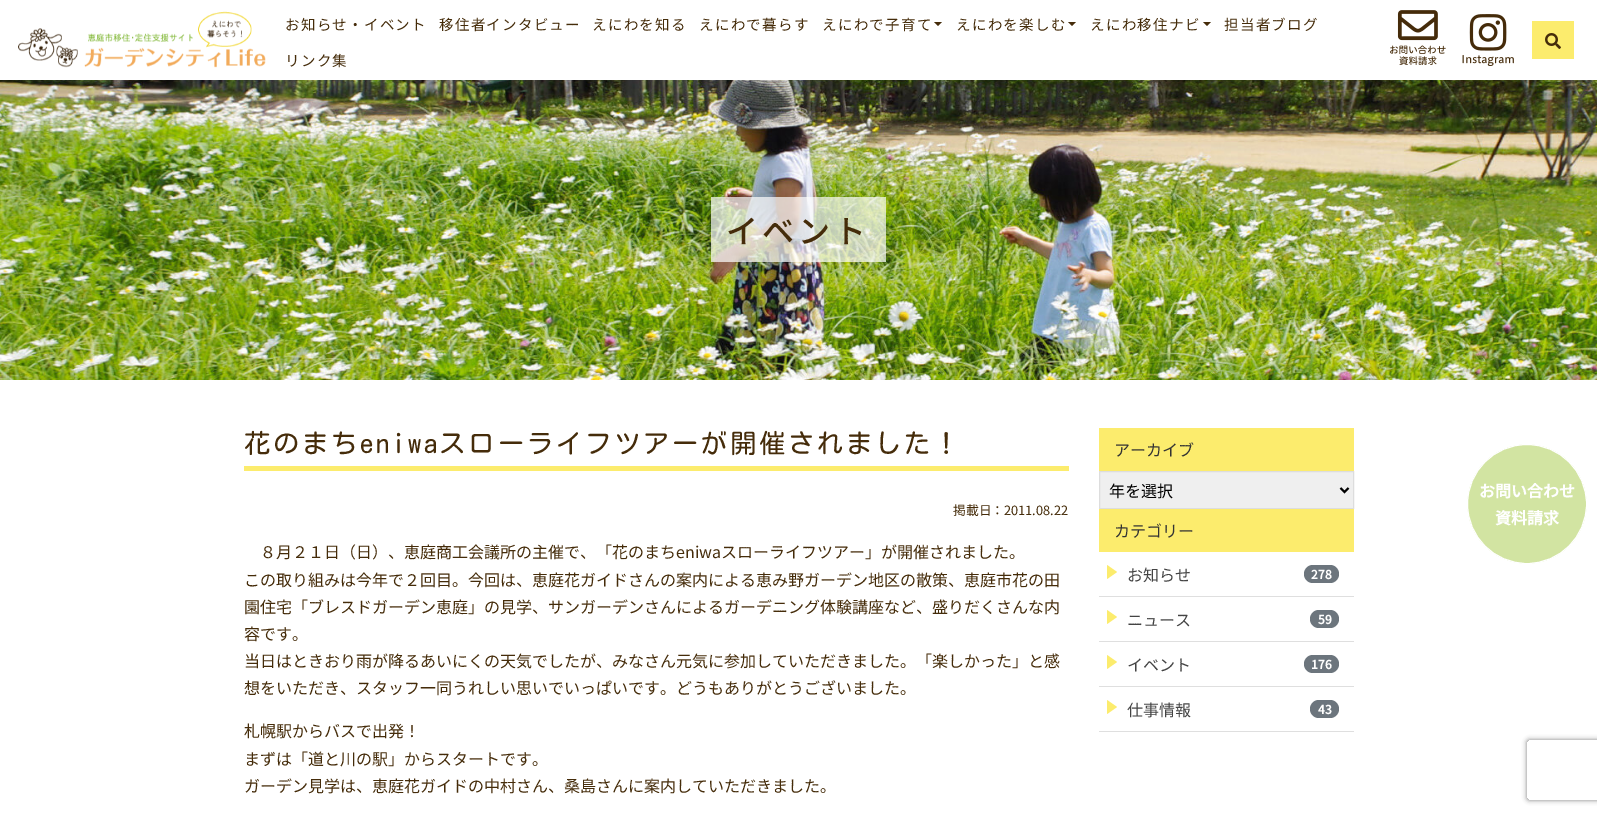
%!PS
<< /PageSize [1597 814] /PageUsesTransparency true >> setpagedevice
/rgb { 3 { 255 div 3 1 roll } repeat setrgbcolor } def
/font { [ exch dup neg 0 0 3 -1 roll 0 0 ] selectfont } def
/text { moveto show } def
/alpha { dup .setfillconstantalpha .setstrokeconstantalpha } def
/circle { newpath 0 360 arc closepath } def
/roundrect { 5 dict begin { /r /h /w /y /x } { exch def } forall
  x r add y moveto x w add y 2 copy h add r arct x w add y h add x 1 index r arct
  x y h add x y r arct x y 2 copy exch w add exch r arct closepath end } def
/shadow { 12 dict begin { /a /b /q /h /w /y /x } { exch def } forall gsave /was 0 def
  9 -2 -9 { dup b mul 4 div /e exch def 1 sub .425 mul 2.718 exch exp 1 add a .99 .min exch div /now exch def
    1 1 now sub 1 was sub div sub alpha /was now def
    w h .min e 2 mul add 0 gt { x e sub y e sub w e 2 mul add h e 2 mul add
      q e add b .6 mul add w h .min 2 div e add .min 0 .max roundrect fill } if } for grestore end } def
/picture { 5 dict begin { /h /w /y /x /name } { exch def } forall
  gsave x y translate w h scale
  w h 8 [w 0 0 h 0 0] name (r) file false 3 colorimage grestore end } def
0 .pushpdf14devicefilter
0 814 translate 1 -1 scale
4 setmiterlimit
255 255 255 rgb
0 0 1597 814 rectfill
(img_01.rgb) 18 11 248 57 picture
69 44 10 rgb
934 22 moveto 8 0 rlineto -4 4 rlineto closepath fill
1068 22 moveto 8 0 rlineto -4 4 rlineto closepath fill
1203 22 moveto 8 0 rlineto -4 4 rlineto closepath fill
(img_02.rgb) 1390 10 56 55 picture
(img_03.rgb) 1462 14 52 52 picture
252 236 109 rgb
1532 21 42 38 rectfill
(img_04.rgb) 1545 33 16 16 picture
(img_05.rgb) 0 80 1597 300 picture
0.7 alpha
255 255 255 rgb
711 197 175 65 rectfill
1 alpha
252 236 109 rgb
244 466 825 5 rectfill
1099 428 255 43 rectfill
239 239 239 rgb
1099.5 471.5 moveto 254 0 rlineto 0 37 rlineto -254 0 rlineto closepath gsave fill grestore
221 221 221 rgb
stroke
0 0 0 rgb
2 setlinewidth
1340.5 488 moveto 4 4 rlineto 4 -4 rlineto stroke
252 236 109 rgb
1099 509 255 43 rectfill
223 223 223 rgb
1099 596 255 1 rectfill
252 236 109 rgb
1107 579 moveto 0 -14 rlineto 10 7 rlineto closepath fill
108 117 125 rgb
1304 565 35 18 9 roundrect fill
223 223 223 rgb
1099 641 255 1 rectfill
252 236 109 rgb
1107 624 moveto 0 -14 rlineto 10 7 rlineto closepath fill
108 117 125 rgb
1310 610 29 18 9 roundrect fill
223 223 223 rgb
1099 686 255 1 rectfill
252 236 109 rgb
1107 669 moveto 0 -14 rlineto 10 7 rlineto closepath fill
108 117 125 rgb
1304 655 35 18 9 roundrect fill
223 223 223 rgb
1099 731 255 1 rectfill
252 236 109 rgb
1107 714 moveto 0 -14 rlineto 10 7 rlineto closepath fill
108 117 125 rgb
1310 700 29 18 9 roundrect fill
210 228 162 rgb
1527 504 59.5 circle gsave fill grestore
255 255 255 rgb
1 setlinewidth
stroke
gsave
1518 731 moveto 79 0 rlineto 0 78 rlineto -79 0 rlineto closepath 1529 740 moveto 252 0 rlineto 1 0 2 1 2 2 rcurveto 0 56 rlineto 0 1 -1 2 -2 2 rcurveto -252 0 rlineto -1 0 -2 -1 -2 -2 rcurveto 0 -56 rlineto 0 -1 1 -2 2 -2 rcurveto closepath eoclip newpath
128 128 128 rgb
1527 740 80 60 2 2.5 1 shadow
grestore
/NotoSansJP-Regular 14.5 font
69 44 10 rgb
285 30 moveto 1.25 0 (お知らせ・イベント) ashow
439 30 moveto 1.25 0 (移住者インタビュー) ashow
592 30 moveto 1.25 0 (えにわを知る) ashow
699 30 moveto 1.25 0 (えにわで暮らす) ashow
822 30 moveto 1.25 0 (えにわで子育て) ashow
956 30 moveto 1.25 0 (えにわを楽しむ) ashow
1090 30 moveto 1.25 0 (えにわ移住ナビ) ashow
1224 30 moveto 1.25 0 (担当者ブログ) ashow
285 66 moveto 1.25 0 (リンク集) ashow
/NotoSansJP-Medium 32 font
726 243 moveto 4 0 (イベント) ashow
/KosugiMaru-Regular 26.4 font
244 453 moveto 2.65 0 (花のまちeniwaスローライフツアーが開催されました！) ashow
/NotoSansJP-Regular 12.75 font
(掲載日：2011.08.22) 953 515 text
/NotoSansJP-Regular 16 font
(８月２１日（日）、恵庭商工会議所の主催で、「花のまちeniwaスローライフツアー」が開催されました。) 260 558 text
(この取り組みは今年で２回目。今回は、恵庭花ガイドさんの案内による恵み野ガーデン地区の散策、恵庭市花の田) 244 586 text
(園住宅「ブレスドガーデン恵庭」の見学、サンガーデンさんによるガーデニング体験講座など、盛りだくさんな内) 244 613 text
(容です。) 244 640 text
(当日はときおり雨が降るあいにくの天気でしたが、みなさん元気に参加していただきました。「楽しかった」と感) 244 667 text
(想をいただき、スタッフ一同うれしい思いでいっぱいです。どうもありがとうございました。) 244 694 text
(札幌駅からバスで出発！) 244 737 text
(まずは「道と川の駅」からスタートです。) 244 765 text
(ガーデン見学は、恵庭花ガイドの中村さん、桑島さんに案内していただきました。) 244 792 text
51 51 51 rgb
(アーカイブ) 1114 456 text
0 0 0 rgb
(年を選択) 1109 497 text
51 51 51 rgb
(カテゴリー) 1114 537 text
68 68 68 rgb
(お知らせ) 1127 581 text
/NotoSansJP-Bold 12 font
255 255 255 rgb
(278) 1311 579 text
/NotoSansJP-Regular 16 font
68 68 68 rgb
(ニュース) 1127 626 text
/NotoSansJP-Bold 12 font
255 255 255 rgb
(59) 1318 624 text
/NotoSansJP-Regular 16 font
68 68 68 rgb
(イベント) 1127 671 text
/NotoSansJP-Bold 12 font
255 255 255 rgb
(176) 1311 669 text
/NotoSansJP-Regular 16 font
68 68 68 rgb
(仕事情報) 1127 716 text
/NotoSansJP-Bold 12 font
255 255 255 rgb
(43) 1318 714 text
/NotoSansJP-Bold 16 font
(お問い合わせ) 1479 497 text
(資料請求) 1495 524 text
.poppdf14devicefilter showpage
